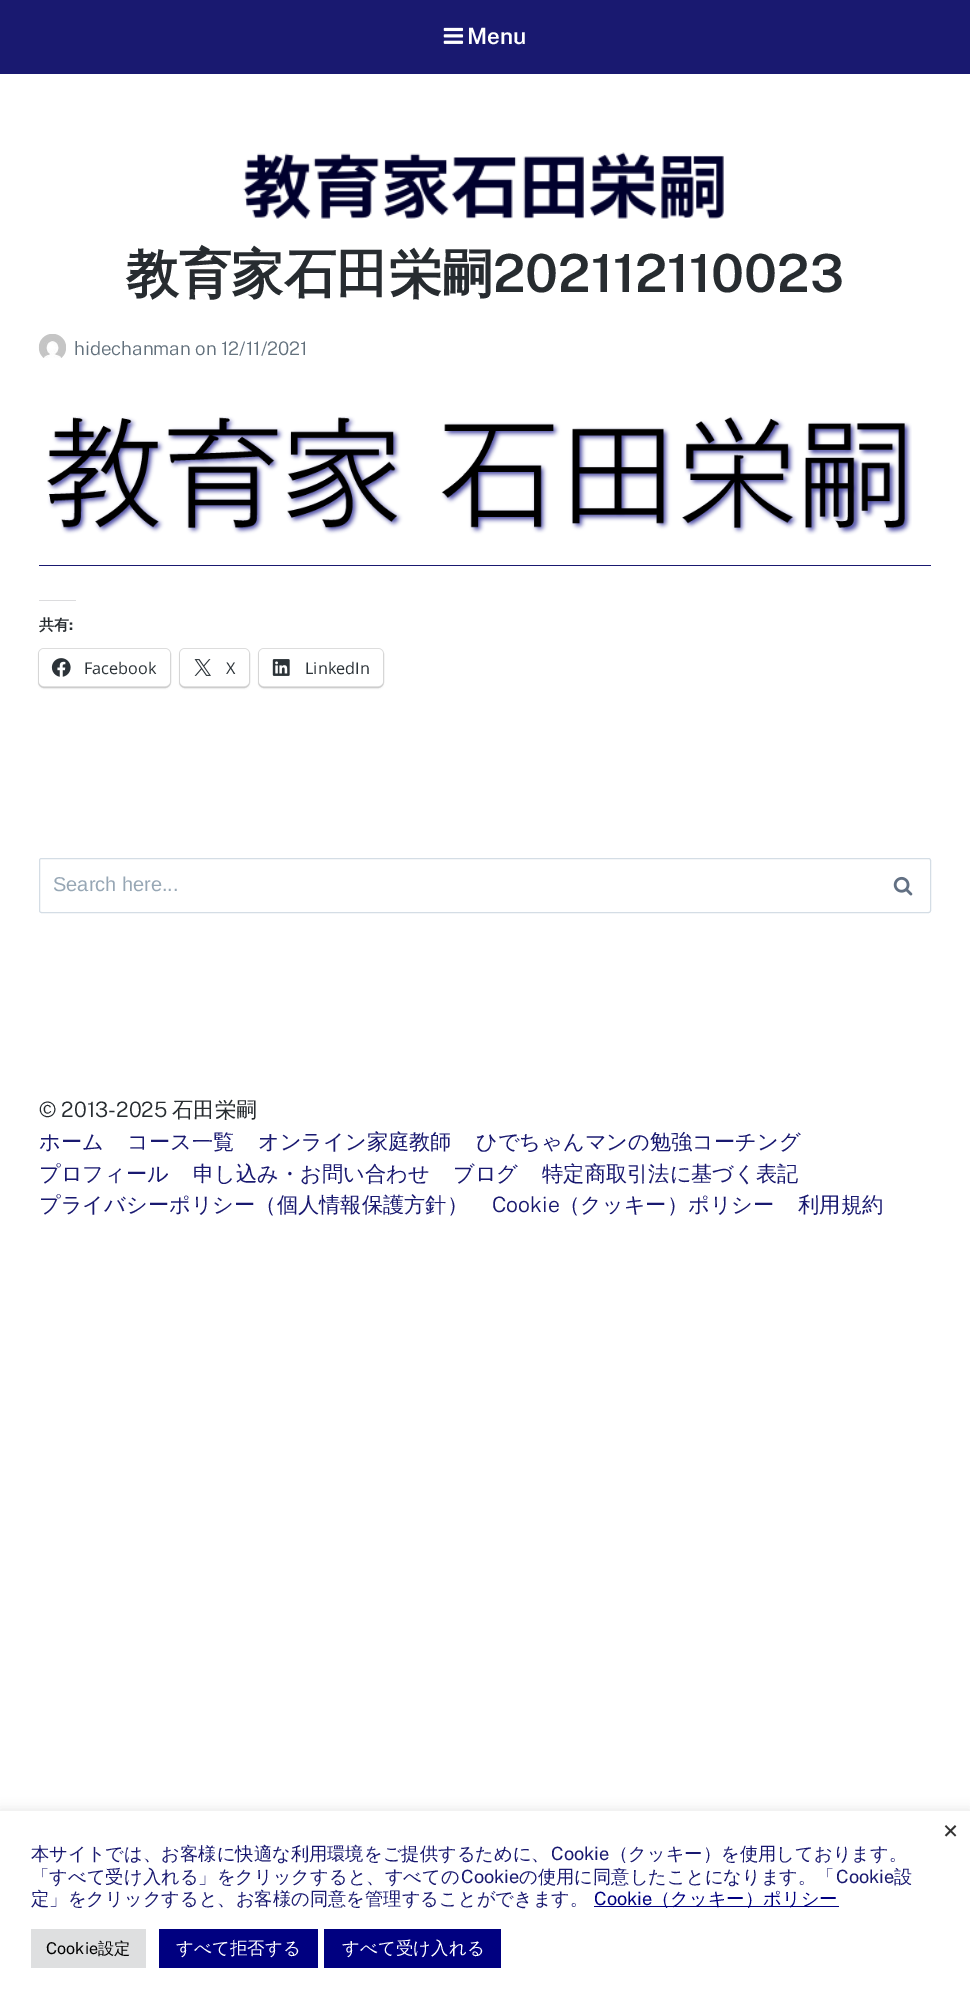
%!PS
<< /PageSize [970 2005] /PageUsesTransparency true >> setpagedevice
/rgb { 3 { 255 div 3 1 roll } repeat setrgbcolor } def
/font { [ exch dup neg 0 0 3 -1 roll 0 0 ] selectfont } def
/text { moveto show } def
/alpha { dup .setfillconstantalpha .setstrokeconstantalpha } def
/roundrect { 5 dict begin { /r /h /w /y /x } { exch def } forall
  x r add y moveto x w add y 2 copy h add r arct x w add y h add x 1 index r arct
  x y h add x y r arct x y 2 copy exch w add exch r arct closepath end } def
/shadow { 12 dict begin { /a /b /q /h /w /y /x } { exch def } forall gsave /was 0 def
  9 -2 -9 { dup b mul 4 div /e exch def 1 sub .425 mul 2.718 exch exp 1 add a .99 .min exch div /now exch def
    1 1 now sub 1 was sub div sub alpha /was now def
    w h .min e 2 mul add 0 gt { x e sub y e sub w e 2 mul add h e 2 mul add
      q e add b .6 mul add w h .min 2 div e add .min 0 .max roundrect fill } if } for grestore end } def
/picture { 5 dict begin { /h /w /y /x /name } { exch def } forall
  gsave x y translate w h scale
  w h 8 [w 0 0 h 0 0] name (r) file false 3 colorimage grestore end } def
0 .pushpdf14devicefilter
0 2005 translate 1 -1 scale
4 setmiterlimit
255 255 255 rgb
0 0 970 2005 rectfill
25 25 112 rgb
0 0 970 74 rectfill
(img_01.rgb) 443 27 21 17 picture
(img_02.rgb) 243 152 481 67 picture
(img_03.rgb) 38 334 28 24 picture
(img_04.rgb) 47 416 865 119 picture
39 565 892 1 rectfill
220 220 222 rgb
39 600 37 1 rectfill
224 224 224 rgb
38.5 648.5 132 39 5.5 roundrect stroke
0 0 0 rgb
39 650 131 38 5 1 0.12 shadow
255 255 255 rgb
39 649 131 37 5 roundrect fill
(img_05.rgb) 51 658 20 19 picture
224 224 224 rgb
179.5 648.5 70 39 5.5 roundrect stroke
0 0 0 rgb
180 650 69 38 5 1 0.12 shadow
255 255 255 rgb
180 649 69 37 5 roundrect fill
(img_06.rgb) 194 659 17 17 picture
224 224 224 rgb
258.5 648.5 125 39 5.5 roundrect stroke
0 0 0 rgb
259 650 124 38 5 1 0.12 shadow
255 255 255 rgb
259 649 124 37 5 roundrect fill
(img_07.rgb) 272 659 18 17 picture
212 221 229 rgb
39.5 858.5 891 54 2 roundrect stroke
(img_08.rgb) 893 876 20 20 picture
172 171 171 rgb
0 1810 970 194 0 6 0.3 shadow
255 255 255 rgb
0 1811 970 194 rectfill
222 223 224 rgb
31 1929 115 39 rectfill
0 0 128 rgb
159 1929 159 39 rectfill
324 1929 177 39 rectfill
594 1906 245 1 rectfill
/PublicSans-SemiBold 22.5 font
255 255 255 rgb
(Menu) 467 44 text
/WenQuanYiZenHei-Bold 52.5 font
39 44 48 rgb
(教育家石田栄嗣) 126 292 text
/PublicSans-SemiBold 52.5 font
(202112110023) 493 292 text
/PublicSans-Light 18.75 font
98 112 124 rgb
(hidechanman on 12/11/2021) 74 355 text
/WenQuanYiZenHei-Bold 15 font
39 44 48 rgb
(共有) 39 630 text
/PublicSans-Bold 15 font
(:) 69 630 text
/OpenSans-Regular 16.25 font
44 51 56 rgb
(Facebook) 84 674 text
(X) 226 674 text
(LinkedIn) 305 674 text
/LiberationSans-Regular 20 font
151 167 181 rgb
(Search here...) 53 891 text
/PublicSans-Light 21.25 font
39 44 48 rgb
(© 2013-2025) 39 1117 text
/WenQuanYiZenHei-Medium 21.25 font
(石田栄嗣) 172 1117 text
25 25 112 rgb
(ホーム) 39 1149 text
(コース一覧) 127 1149 text
(オンライン家庭教師) 258 1149 text
(ひでちゃんマンの勉強コーチング) 476 1149 text
(プロフィール) 39 1181 text
(申し込み・お問い合わせ) 193 1181 text
(ブログ) 453 1181 text
(特定商取引法に基づく表記) 542 1181 text
(プライバシーポリシー（個人情報保護方針）) 39 1212 text
/PublicSans-Light 21.25 font
(Cookie) 492 1212 text
/WenQuanYiZenHei-Medium 21.25 font
(（クッキー）ポリシー) 559 1212 text
(利用規約) 798 1212 text
/PublicSans-Regular 28 font
51 51 51 rgb
(×) 943 1841 text
/PublicSans-Regular 16.25 font
0 0 0 rgb
(Cookie) 46 1954 text
/WenQuanYiZenHei-Medium 16.25 font
(設定) 98 1954 text
/WenQuanYiZenHei-Medium 17.5 font
255 255 255 rgb
(すべて拒否する) 176 1954 text
(すべて受け入れる) 342 1954 text
/WenQuanYiZenHei-Medium 18.3 font
25 25 112 rgb
(本サイトでは、お客様に快適な利用環境をご提供するために、) 31 1860 text
/PublicSans-Regular 18.3 font
(Cookie) 551 1860 text
/WenQuanYiZenHei-Medium 18.3 font
(（クッキー）を使用しております。) 610 1860 text
(「すべて受け入れる」をクリックすると、すべての) 31 1883 text
/PublicSans-Regular 18.3 font
(Cookie) 461 1883 text
/WenQuanYiZenHei-Medium 18.3 font
(の使用に同意したことになります。「) 519 1883 text
/PublicSans-Regular 18.3 font
(Cookie) 836 1883 text
/WenQuanYiZenHei-Medium 18.3 font
(設) 894 1883 text
(定」をクリックすると、お客様の同意を管理することができます。) 31 1905 text
/PublicSans-Regular 18.3 font
0 0 128 rgb
(Cookie) 594 1905 text
/WenQuanYiZenHei-Medium 18.3 font
(（クッキー）ポリシー) 652 1905 text
.poppdf14devicefilter showpage
